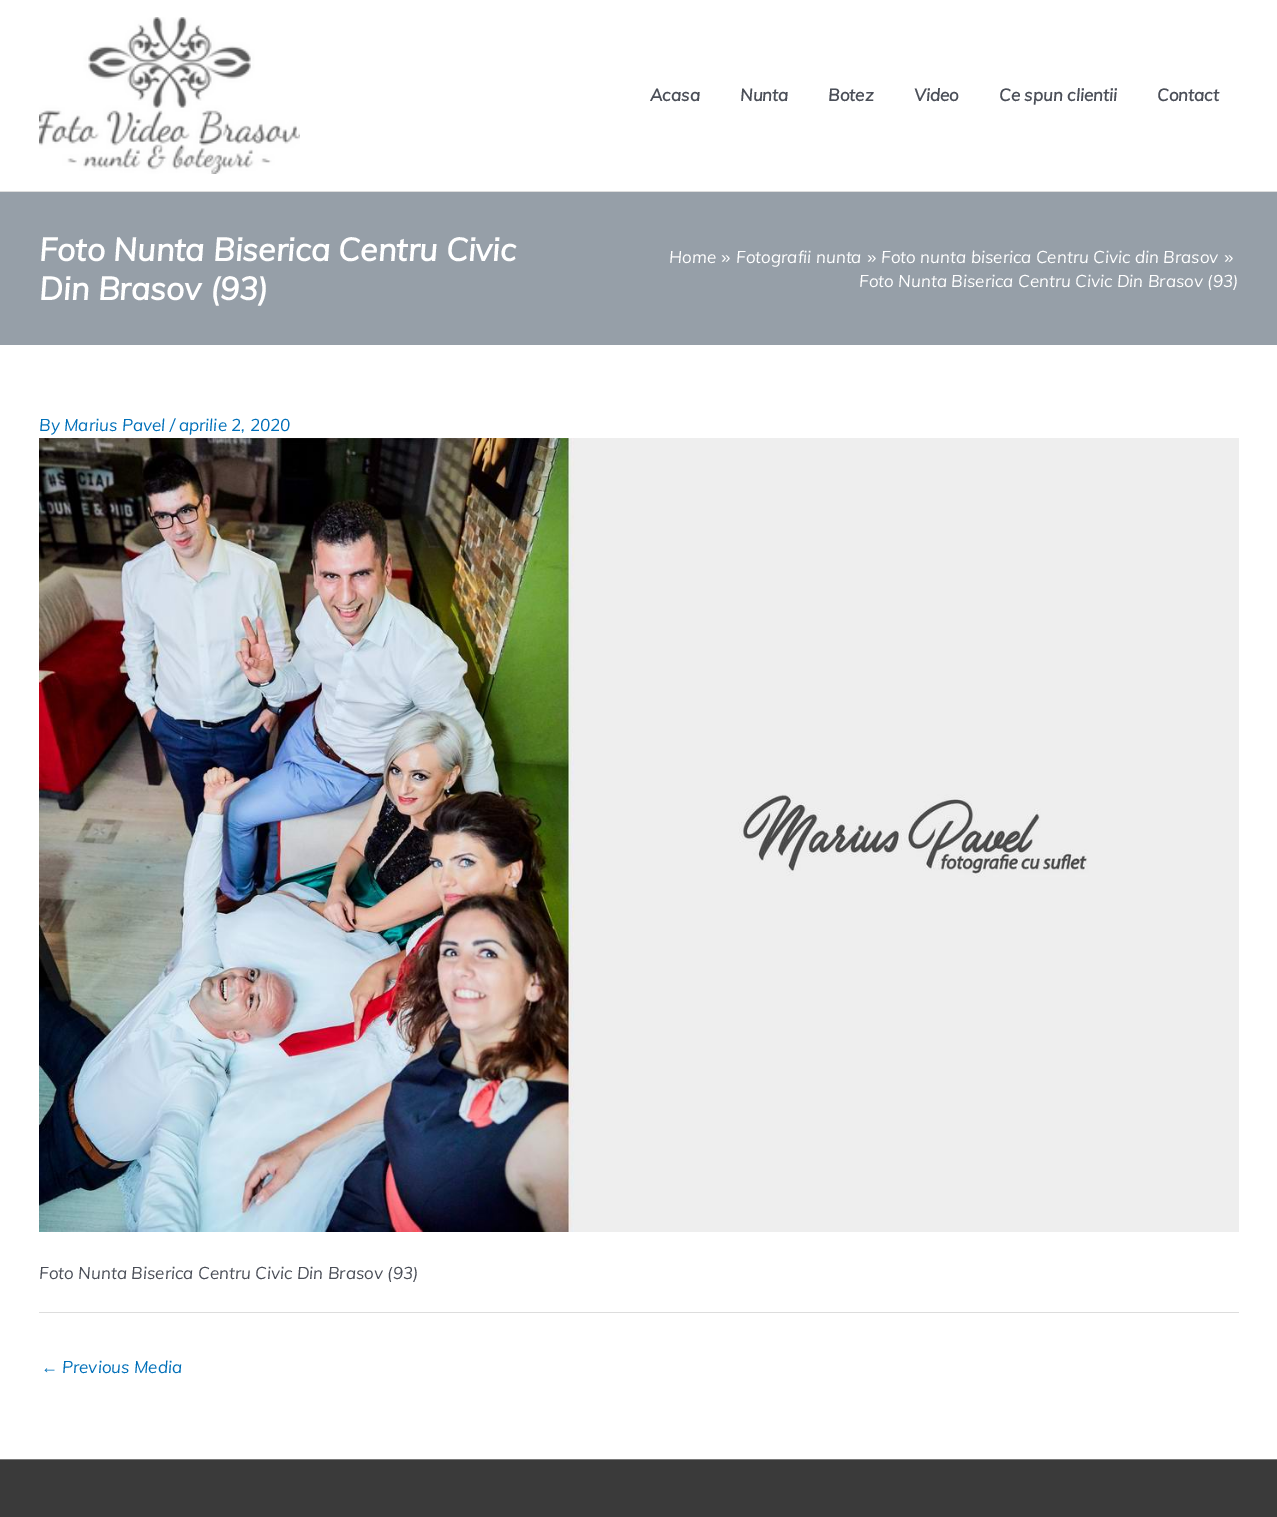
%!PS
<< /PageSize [1277 1517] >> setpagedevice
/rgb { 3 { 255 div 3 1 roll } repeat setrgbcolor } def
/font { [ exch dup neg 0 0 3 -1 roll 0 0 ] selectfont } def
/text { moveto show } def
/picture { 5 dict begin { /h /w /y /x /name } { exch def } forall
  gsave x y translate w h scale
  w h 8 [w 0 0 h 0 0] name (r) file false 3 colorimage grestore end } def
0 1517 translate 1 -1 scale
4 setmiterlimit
255 255 255 rgb
0 0 1277 1517 rectfill
221 221 221 rgb
0 191 1277 1 rectfill
(img_01.rgb) 39 17 261 157 picture
150 159 168 rgb
0 192 1277 153 rectfill
(img_02.rgb) 39 438 1200 794 picture
221 221 221 rgb
39 1312 1200 1 rectfill
122 122 122 rgb
0 1459 1277 1 rectfill
58 58 58 rgb
0 1460 1277 57 rectfill
/Muli-BoldItalic 17 font
75 79 88 rgb
(Acasa) 650 101 text
(Nunta) 740 101 text
(Botez) 828 101 text
(Video) 914 101 text
(Ce spun clientii) 999 101 text
(Contact) 1157 101 text
/Muli-BoldItalic 32 font
255 255 255 rgb
(Foto Nunta Biserica Centru Civic) 39 261 text
(Din Brasov \(93\)) 39 300 text
/Muli-Italic 17 font
(Home) 669 263 text
/LiberationSans-Regular 17 font
(») 721 263 text
/Muli-Italic 17 font
(Fotografii nunta) 736 263 text
/LiberationSans-Regular 17 font
(») 867 263 text
/Muli-Italic 17 font
(Foto nunta biserica Centru Civic din Brasov) 881 263 text
/LiberationSans-Regular 17 font
(») 1224 263 text
/Muli-Italic 17 font
(Foto Nunta Biserica Centru Civic Din Brasov \(93\)) 859 287 text
1 112 185 rgb
(By Marius Pavel / aprilie 2, 2020) 39 431 text
75 79 88 rgb
(Foto Nunta Biserica Centru Civic Din Brasov \(93\)) 39 1279 text
/LiberationSans-Regular 17 font
1 112 185 rgb
(←) 41 1373 text
/Muli-Italic 17 font
(Previous Media) 62 1373 text
showpage
